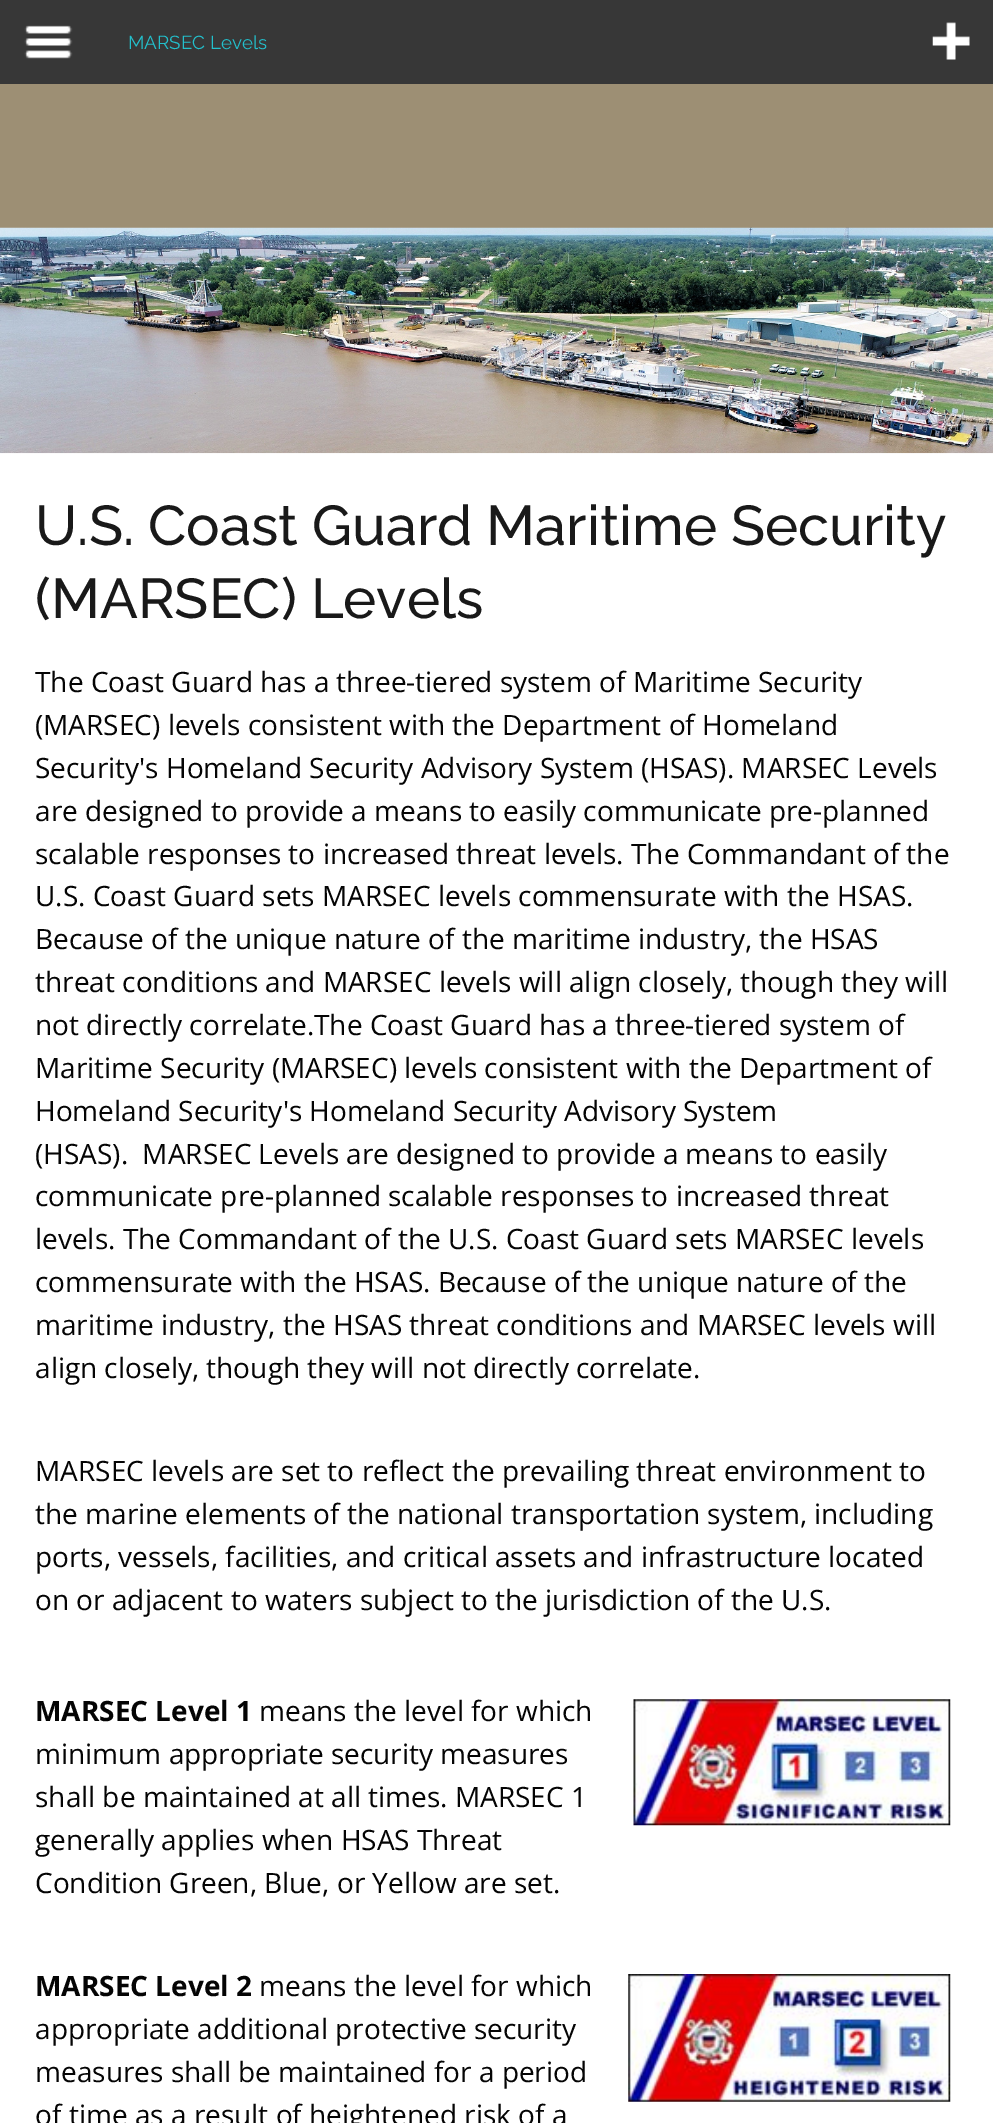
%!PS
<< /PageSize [993 2123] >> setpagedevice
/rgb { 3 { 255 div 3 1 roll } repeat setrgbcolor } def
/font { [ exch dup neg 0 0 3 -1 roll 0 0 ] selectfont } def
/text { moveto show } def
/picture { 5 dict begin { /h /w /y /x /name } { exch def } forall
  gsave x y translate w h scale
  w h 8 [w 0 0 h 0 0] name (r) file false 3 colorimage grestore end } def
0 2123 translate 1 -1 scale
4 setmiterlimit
255 255 255 rgb
0 0 993 2123 rectfill
55 55 55 rgb
0 0 993 84 rectfill
(img_01.rgb) 24 25 49 34 picture
(img_02.rgb) 932 22 38 38 picture
157 143 116 rgb
0 84 993 144 rectfill
(img_03.rgb) 0 227 993 227 picture
(img_04.rgb) 633 1699 318 127 picture
(img_05.rgb) 628 1974 323 128 picture
/Raleway-Regular 18.75 font
35 192 204 rgb
(MARSEC Levels) 128 49 text
/Raleway-Medium 56 font
25 25 25 rgb
(U.S. Coast Guard Maritime Security) 35 545 text
(\(MARSEC\) Levels) 35 618 text
/OpenSans-Regular 28 font
4 4 4 rgb
(The Coast Guard has a three-tiered system of Maritime Security) 35 692 text
(\(MARSEC\) levels consistent with the Department of Homeland) 35 735 text
(Security's Homeland Security Advisory System \(HSAS\). MARSEC Levels) 35 778 text
(are designed to provide a means to easily communicate pre-planned) 35 821 text
(scalable responses to increased threat levels. The Commandant of the) 35 864 text
(U.S. Coast Guard sets MARSEC levels commensurate with the HSAS.) 35 906 text
(Because of the unique nature of the maritime industry, the HSAS) 35 949 text
(threat conditions and MARSEC levels will align closely, though they will) 35 992 text
(not directly correlate.The Coast Guard has a three-tiered system of) 35 1035 text
(Maritime Security \(MARSEC\) levels consistent with the Department of) 35 1078 text
(Homeland Security's Homeland Security Advisory System) 35 1121 text
(\(HSAS\).  MARSEC Levels are designed to provide a means to easily) 35 1164 text
(communicate pre-planned scalable responses to increased threat) 35 1206 text
(levels. The Commandant of the U.S. Coast Guard sets MARSEC levels) 35 1249 text
(commensurate with the HSAS. Because of the unique nature of the) 35 1292 text
(maritime industry, the HSAS threat conditions and MARSEC levels will) 35 1335 text
(align closely, though they will not directly correlate.) 35 1378 text
(MARSEC levels are set to reflect the prevailing threat environment to) 35 1481 text
(the marine elements of the national transportation system, including) 35 1524 text
(ports, vessels, facilities, and critical assets and infrastructure located) 35 1567 text
(on or adjacent to waters subject to the jurisdiction of the U.S.) 35 1610 text
/OpenSans-Bold 28 font
(MARSEC Level 1) 35 1721 text
/OpenSans-Regular 28 font
(means the level for which) 259 1721 text
(minimum appropriate security measures) 35 1764 text
(shall be maintained at all times. MARSEC 1) 35 1807 text
(generally applies when HSAS Threat) 35 1850 text
(Condition Green, Blue, or Yellow are set.) 35 1893 text
/OpenSans-Bold 28 font
(MARSEC Level 2) 35 1996 text
/OpenSans-Regular 28 font
(means the level for which) 259 1996 text
(appropriate additional protective security) 35 2039 text
(measures shall be maintained for a period) 35 2082 text
(of time as a result of heightened risk of a) 35 2125 text
showpage
